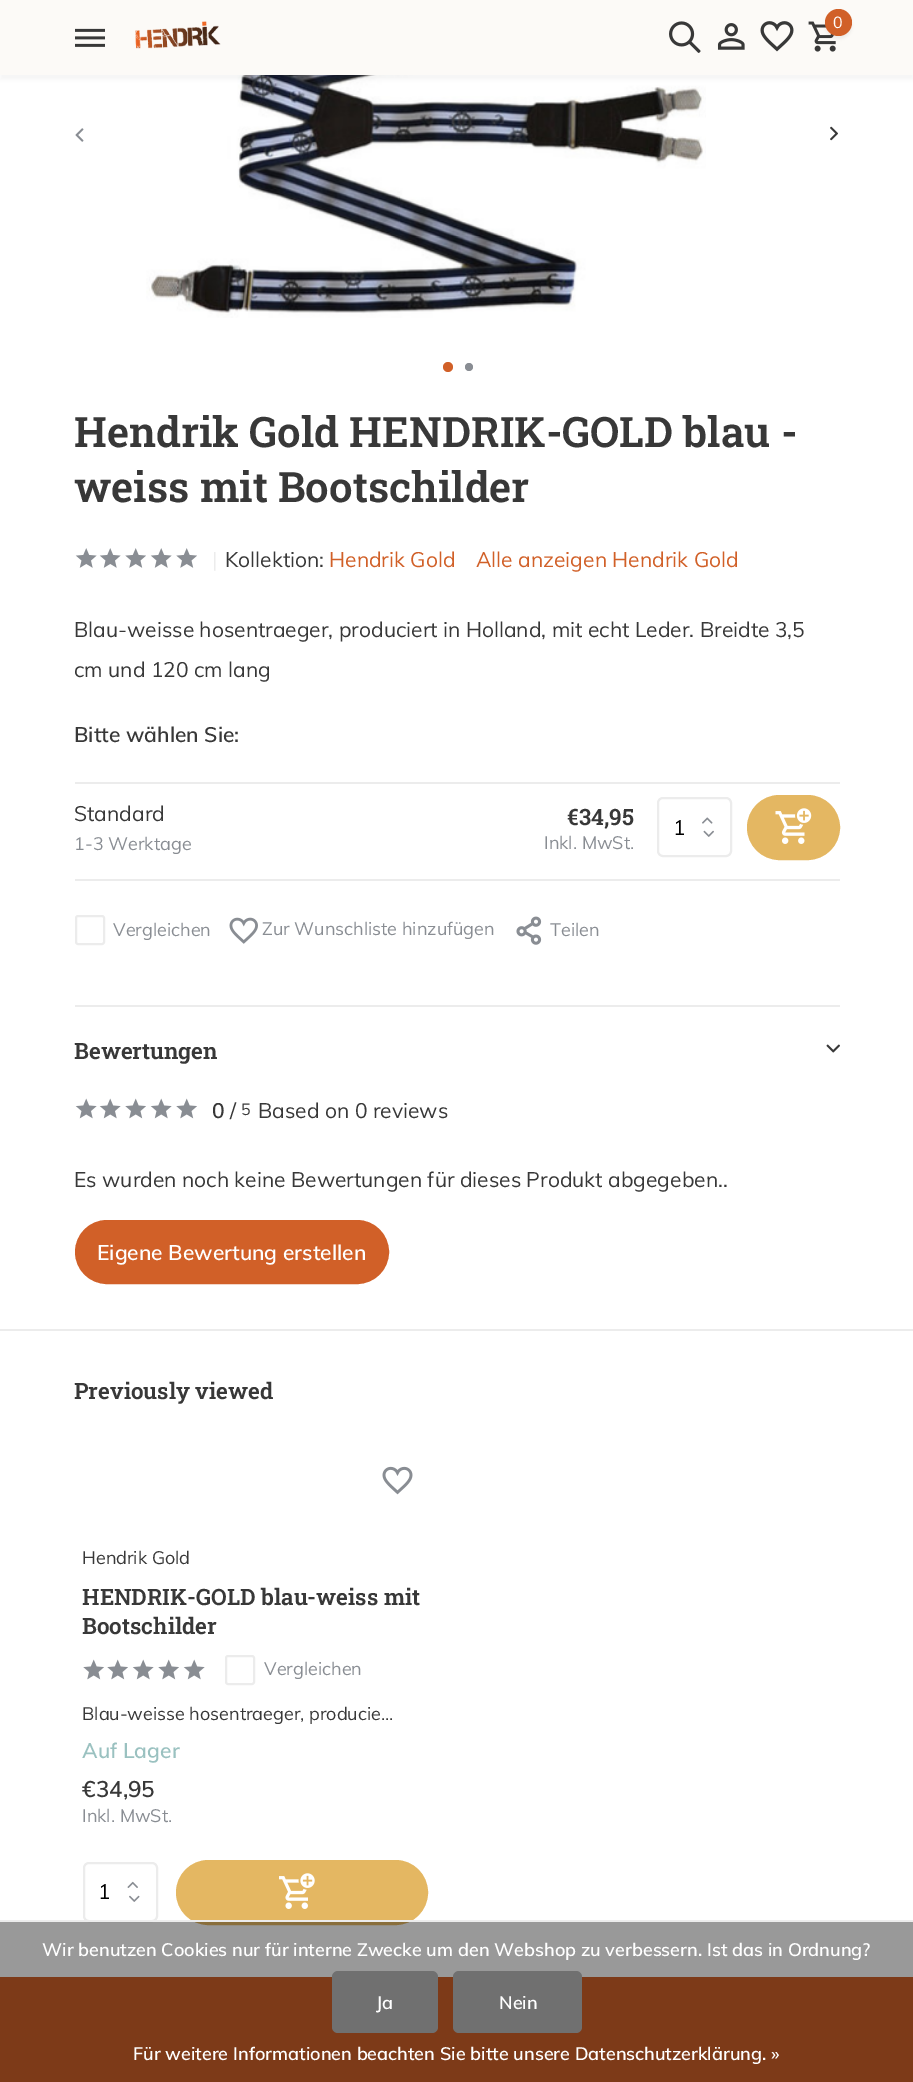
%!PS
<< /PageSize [913 2082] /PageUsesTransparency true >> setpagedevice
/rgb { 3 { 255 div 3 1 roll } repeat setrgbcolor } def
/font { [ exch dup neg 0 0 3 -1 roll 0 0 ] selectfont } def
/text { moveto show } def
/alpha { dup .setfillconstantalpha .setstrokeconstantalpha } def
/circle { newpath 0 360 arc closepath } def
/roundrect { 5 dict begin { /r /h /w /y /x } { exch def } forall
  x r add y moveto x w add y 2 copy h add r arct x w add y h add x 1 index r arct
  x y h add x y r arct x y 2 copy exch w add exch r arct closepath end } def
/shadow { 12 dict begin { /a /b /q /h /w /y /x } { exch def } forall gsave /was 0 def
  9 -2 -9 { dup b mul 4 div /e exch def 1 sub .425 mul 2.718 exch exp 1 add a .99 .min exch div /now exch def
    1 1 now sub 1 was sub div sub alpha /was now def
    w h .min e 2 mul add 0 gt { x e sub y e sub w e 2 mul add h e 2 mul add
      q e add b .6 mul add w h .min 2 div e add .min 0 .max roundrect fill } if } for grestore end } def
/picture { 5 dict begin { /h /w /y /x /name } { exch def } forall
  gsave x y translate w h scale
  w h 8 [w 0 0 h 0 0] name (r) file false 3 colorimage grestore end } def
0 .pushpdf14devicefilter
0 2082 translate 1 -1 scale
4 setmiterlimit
255 255 255 rgb
0 0 913 2082 rectfill
(img_07.rgb) 146 75 560 243 picture
0 0 0 rgb
0 5 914 75 0 2 0.04 shadow
252 250 247 rgb
0 0 913 75 rectfill
(img_01.rgb) 75 28 30 19 picture
(img_02.rgb) 135 21 86 28 picture
(img_03.rgb) 669 21 32 32 picture
(img_04.rgb) 717 23 28 27 picture
(img_05.rgb) 760 21 34 31 picture
(img_06.rgb) 808 21 28 31 picture
0 0 0 rgb
825 12 27 27 13.5 1.5 0.06 shadow
209 96 40 rgb
838.5 22.5 13.5 circle fill
(img_08.rgb) 75 128 9 14 picture
(img_09.rgb) 830 126 8 15 picture
448 367 5 circle fill
137 141 147 rgb
469 367 4 circle fill
(img_10.rgb) 75 548 22 20 picture
(img_10.rgb) 99 548 22 20 picture
(img_11.rgb) 125 548 21 20 picture
(img_10.rgb) 150 548 22 20 picture
(img_11.rgb) 176 548 21 20 picture
236 236 236 rgb
75 782 765 2 rectfill
75 879 765 2 rectfill
2 setlinewidth
658 798 73 58 5 roundrect stroke
(img_12.rgb) 702 817 11 7 picture
(img_13.rgb) 703 830 11 7 picture
228 183 98 rgb
748 796 91 63 31.5 roundrect gsave fill grestore
stroke
(img_14.rgb) 775 808 37 36 picture
236 236 236 rgb
76 916 28 28 2 roundrect stroke
(img_15.rgb) 229 917 29 27 picture
(img_16.rgb) 516 916 26 29 picture
75 1005 765 2 rectfill
(img_17.rgb) 826 1044 14 9 picture
(img_18.rgb) 75 1098 22 21 picture
(img_18.rgb) 99 1098 22 21 picture
(img_19.rgb) 125 1098 21 21 picture
(img_18.rgb) 150 1098 22 21 picture
(img_19.rgb) 176 1098 21 21 picture
209 96 40 rgb
76 1221 312 62 31 roundrect gsave fill grestore
stroke
236 236 236 rgb
0 1329 913 2 rectfill
(img_20.rgb) 382 1466 31 29 picture
(img_19.rgb) 83 1659 21 21 picture
(img_19.rgb) 107 1659 21 21 picture
(img_18.rgb) 132 1659 22 21 picture
(img_19.rgb) 158 1659 21 21 picture
(img_18.rgb) 183 1659 22 21 picture
226 1656 28 28 2 roundrect stroke
84 1863 73 58 5 roundrect stroke
(img_21.rgb) 127 1881 11 7 picture
(img_22.rgb) 129 1895 11 7 picture
228 183 98 rgb
177 1861 250 63 31.5 roundrect gsave fill grestore
stroke
(img_23.rgb) 279 1873 36 36 picture
209 96 40 rgb
0 1977 913 105 rectfill
0.4 alpha
0 0 0 rgb
0 1922 913 160 rectfill
1 alpha
236 236 236 rgb
0 1920 913 2 rectfill
112 112 112 rgb
332 1971 106 62 6 roundrect fill
453 1971 129 62 6 roundrect fill
/Muli-Regular 16 font
255 255 255 rgb
(0) 833 28 text
/RobotoSlab-SemiBold 42 font
56 56 56 rgb
(Hendrik Gold HENDRIK-GOLD blau -) 74 447 text
(weiss mit Bootschilder) 74 502 text
/Muli-Regular 21 font
236 236 236 rgb
(|) 212 567 text
56 56 56 rgb
(Kollektion:) 225 567 text
209 96 40 rgb
(Hendrik Gold) 329 567 text
(Alle anzeigen Hendrik Gold) 476 567 text
56 56 56 rgb
(Blau-weisse hosentraeger, produciert in Holland, mit echt Leder. Breidte 3,5) 74 637 text
(cm und 120 cm lang) 74 677 text
/Muli-SemiBold 21 font
(Bitte wählen Sie:) 74 742 text
/Muli-Regular 21 font
(Standard) 74 821 text
/Muli-Regular 18 font
137 141 147 rgb
(1-3 Werktage) 74 850 text
/RobotoSlab-SemiBold 22.5 font
56 56 56 rgb
(€34,95) 567 825 text
/Muli-Regular 18 font
137 141 147 rgb
(Inkl. MwSt.) 544 849 text
/Muli-Regular 21 font
0 0 0 rgb
(1) 673 835 text
/Muli-Regular 18 font
137 141 147 rgb
(Vergleichen) 113 936 text
(Zur Wunschliste hinzufügen) 262 935 text
(Teilen) 550 936 text
/RobotoSlab-SemiBold 22.5 font
56 56 56 rgb
(Bewertungen) 74 1059 text
/Muli-SemiBold 21 font
(0) 212 1118 text
/Muli-Regular 21 font
(/) 230 1118 text
/Muli-Regular 16 font
(5) 241 1115 text
/Muli-Regular 21 font
(Based on 0 reviews) 258 1118 text
(Es wurden noch keine Bewertungen für dieses Produkt abgegeben..) 74 1187 text
/Muli-SemiBold 21 font
255 255 255 rgb
(Eigene Bewertung erstellen) 97 1260 text
/RobotoSlab-SemiBold 22.5 font
56 56 56 rgb
(Previously viewed) 74 1399 text
/Muli-Regular 18 font
(Hendrik Gold) 82 1564 text
/RobotoSlab-SemiBold 22.5 font
(HENDRIK-GOLD blau-weiss mit) 82 1605 text
(Bootschilder) 82 1634 text
/Muli-Regular 18 font
137 141 147 rgb
(Vergleichen) 264 1675 text
56 56 56 rgb
(Blau-weisse hosentraeger, producie...) 82 1720 text
/Muli-SemiBold 21 font
154 193 192 rgb
(Auf Lager) 82 1758 text
/Muli-SemiBold 22.5 font
56 56 56 rgb
(€34,95) 82 1797 text
/Muli-Regular 18 font
137 141 147 rgb
(Inkl. MwSt.) 82 1822 text
/Muli-Regular 21 font
0 0 0 rgb
(1) 98 1899 text
/Muli-SemiBold 18 font
255 255 255 rgb
(Wir benutzen Cookies nur für interne Zwecke um den Webshop zu verbessern. Ist das in Ordnung?) 42 1956 text
(Ja) 376 2009 text
(Nein) 499 2009 text
(Für weitere Informationen beachten Sie bitte unsere Datenschutzerklärung. ») 133 2060 text
.poppdf14devicefilter showpage
